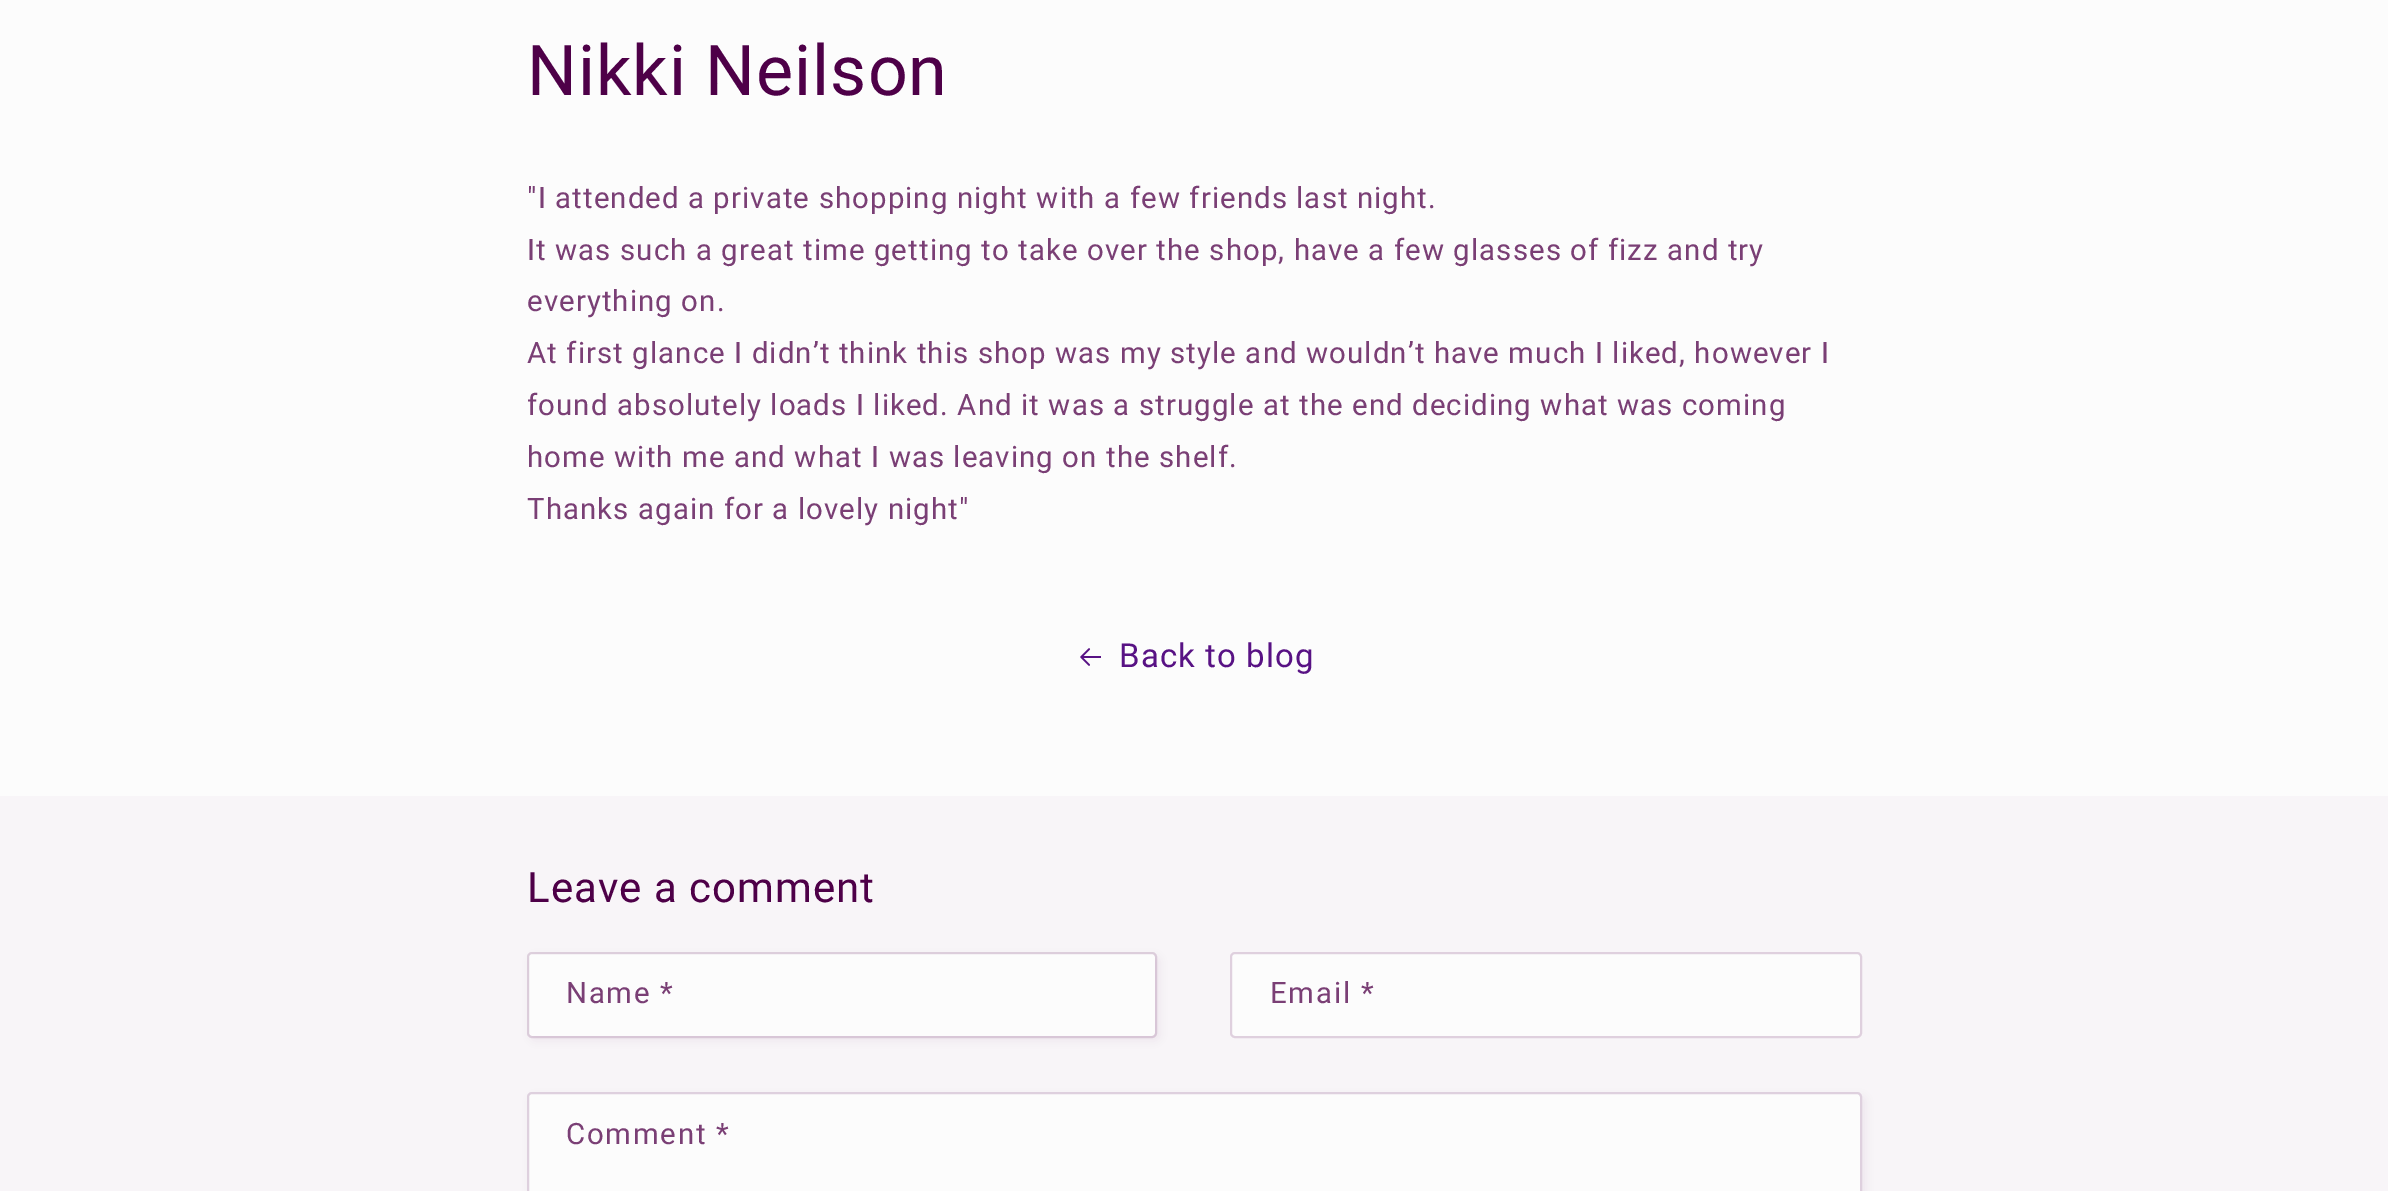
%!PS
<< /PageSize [2388 1191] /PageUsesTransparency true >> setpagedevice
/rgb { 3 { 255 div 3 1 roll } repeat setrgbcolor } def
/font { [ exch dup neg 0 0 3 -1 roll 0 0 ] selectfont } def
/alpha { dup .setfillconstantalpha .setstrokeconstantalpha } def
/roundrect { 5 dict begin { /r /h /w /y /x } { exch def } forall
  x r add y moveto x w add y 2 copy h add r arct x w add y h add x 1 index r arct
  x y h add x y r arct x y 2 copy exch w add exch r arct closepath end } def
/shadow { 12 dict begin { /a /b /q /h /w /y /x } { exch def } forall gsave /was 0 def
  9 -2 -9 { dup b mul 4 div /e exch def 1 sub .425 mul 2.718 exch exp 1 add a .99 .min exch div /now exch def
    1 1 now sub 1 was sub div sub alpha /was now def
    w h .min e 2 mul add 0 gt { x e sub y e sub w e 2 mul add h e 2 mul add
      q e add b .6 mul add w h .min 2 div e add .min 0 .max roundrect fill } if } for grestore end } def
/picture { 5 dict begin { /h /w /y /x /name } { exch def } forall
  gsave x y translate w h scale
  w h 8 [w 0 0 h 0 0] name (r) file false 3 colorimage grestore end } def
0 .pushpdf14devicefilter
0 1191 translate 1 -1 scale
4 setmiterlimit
252 252 252 rgb
0 0 2388 1191 rectfill
(img_01.rgb) 1080 648 21 18 picture
248 245 248 rgb
0 796 2388 395 rectfill
78 0 72 rgb
530 956 630 85 5 4.5 0.05 shadow
252 252 252 rgb
529 954 626 82 4 roundrect fill
0.15 alpha
78 0 72 rgb
2 setlinewidth
528 953 628 84 4 roundrect stroke
1 alpha
252 252 252 rgb
1232 954 628 82 4 roundrect fill
0.15 alpha
78 0 72 rgb
1231 953 630 84 4 roundrect stroke
1 alpha
530 1096 1336 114 5 4.5 0.05 shadow
252 252 252 rgb
529 1094 1331 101 4 roundrect fill
222 208 222 rgb
528 1093 1333 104 4 roundrect stroke
/Roboto-Regular 70 font
78 0 72 rgb
527 95 moveto 1 0 (Nikki Neilson) ashow
/Roboto-Regular 29.4 font
122 63 117 rgb
527 208 moveto 1.1 0 ("I attended a private shopping night with a few friends last night.) ashow
527 260 moveto 1.1 0 (It was such a great time getting to take over the shop, have a few glasses of fizz and try) ashow
527 311 moveto 1.1 0 (everything on.) ashow
527 363 moveto 1.1 0 (At first glance I didn’t think this shop was my style and wouldn’t have much I liked, however I) ashow
527 415 moveto 1.1 0 (found absolutely loads I liked. And it was a struggle at the end deciding what was coming) ashow
527 467 moveto 1.1 0 (home with me and what I was leaving on the shelf.) ashow
527 519 moveto 1.1 0 (Thanks again for a lovely night") ashow
/Roboto-Regular 33 font
88 18 132 rgb
1119 667 moveto 1.1 0 (Back to blog) ashow
/Roboto-Regular 42 font
78 0 72 rgb
527 902 moveto 1 0 (Leave a comment) ashow
/Roboto-Regular 29.4 font
122 63 117 rgb
566 1003 moveto 1.75 0 (Name *) ashow
1270 1003 moveto 1.75 0 (Email *) ashow
566 1144 moveto 1.75 0 (Comment *) ashow
.poppdf14devicefilter showpage
